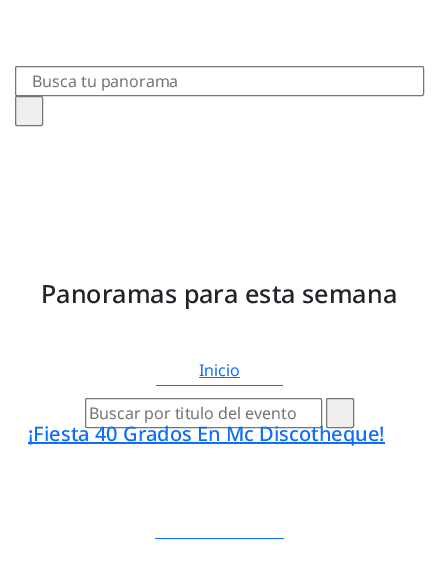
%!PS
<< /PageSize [439 578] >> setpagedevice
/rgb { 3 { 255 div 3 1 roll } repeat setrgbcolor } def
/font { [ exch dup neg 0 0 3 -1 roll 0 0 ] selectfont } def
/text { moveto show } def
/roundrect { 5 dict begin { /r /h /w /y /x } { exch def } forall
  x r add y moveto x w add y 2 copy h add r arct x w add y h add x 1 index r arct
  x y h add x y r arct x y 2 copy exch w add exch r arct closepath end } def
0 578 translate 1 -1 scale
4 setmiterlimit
255 255 255 rgb
0 0 439 578 rectfill
118 118 118 rgb
15.5 66.5 408 29 1.5 roundrect stroke
239 239 239 rgb
15.5 96.5 27 29 1.5 roundrect gsave fill grestore
118 118 118 rgb
stroke
13 110 253 rgb
156 385 127 1 rectfill
28 442 357 2 rectfill
155 538 129 1 rectfill
199 377 41 1 rectfill
118 118 118 rgb
85.5 398.5 236 29 1.5 roundrect stroke
239 239 239 rgb
326.5 398.5 27 29 1.5 roundrect gsave fill grestore
118 118 118 rgb
stroke
/NotoSans-Regular 16 font
117 117 117 rgb
(Busca tu panorama) 32 87 text
/NotoSans-Medium 25.1 font
33 37 41 rgb
(Panoramas para esta semana) 41 303 text
/NotoSans-Medium 20 font
13 110 253 rgb
(¡Fiesta 40 Grados En Mc Discotheque!) 28 441 text
/NotoSans-Regular 16 font
(Inicio) 199 376 text
117 117 117 rgb
(Buscar por titulo del evento) 89 419 text
showpage
